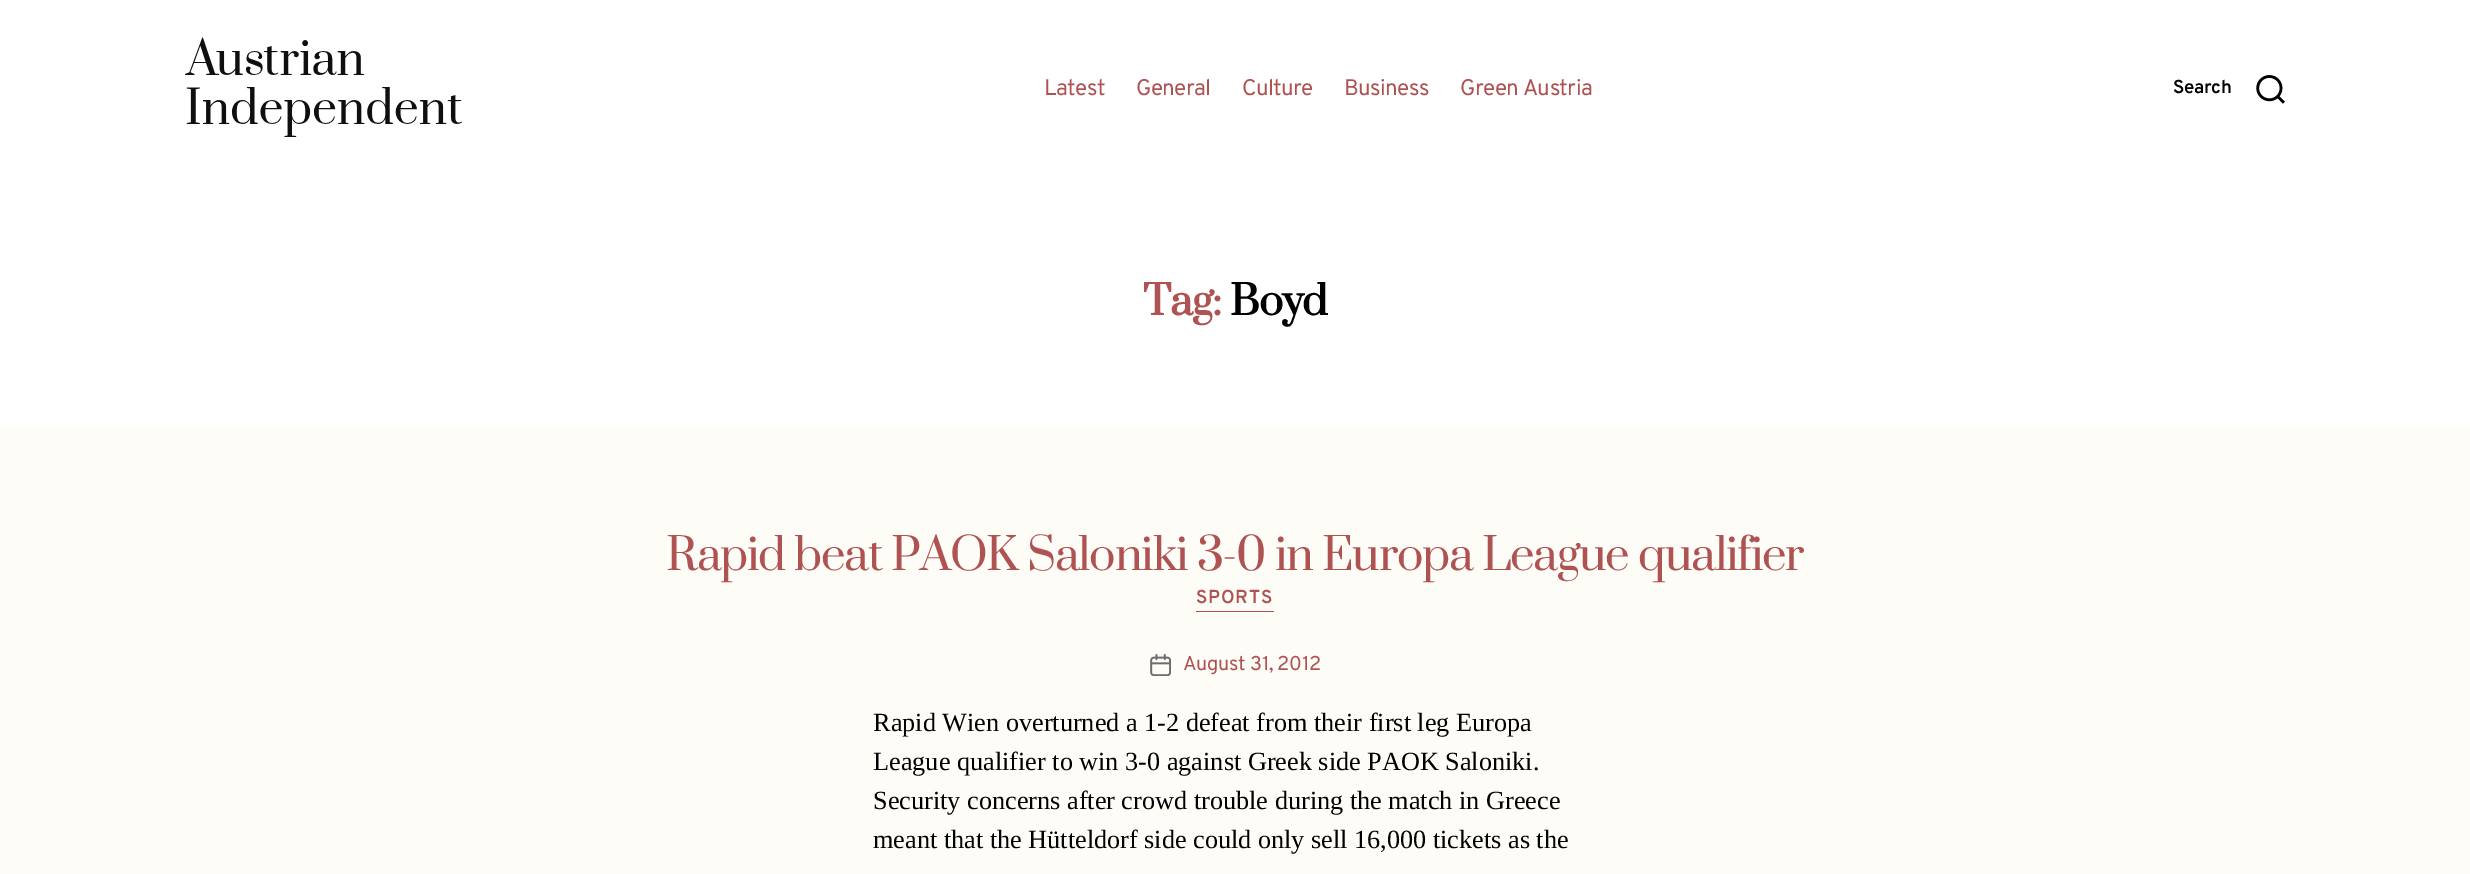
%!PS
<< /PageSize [2470 874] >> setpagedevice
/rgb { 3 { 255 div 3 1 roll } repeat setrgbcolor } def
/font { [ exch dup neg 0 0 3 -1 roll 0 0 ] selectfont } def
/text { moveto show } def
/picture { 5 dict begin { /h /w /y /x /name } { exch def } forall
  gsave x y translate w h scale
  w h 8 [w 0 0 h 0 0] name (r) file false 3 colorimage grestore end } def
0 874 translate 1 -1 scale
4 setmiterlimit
253 252 247 rgb
0 0 2470 874 rectfill
255 255 255 rgb
0 0 2470 425 rectfill
(img_01.rgb) 185 37 277 100 picture
(img_02.rgb) 2256 75 29 29 picture
175 82 82 rgb
1196 611 78 1 rectfill
(img_03.rgb) 1150 654 21 22 picture
/Overpass-Regular 22.5 font
1044 95 moveto -0.6 0 (Latest) ashow
1136 95 moveto -0.6 0 (General) ashow
1242 95 moveto -0.6 0 (Culture) ashow
1344 95 moveto -0.6 0 (Business) ashow
1460 95 moveto -0.6 0 (Green Austria) ashow
/Overpass-SemiBold 18.75 font
0 0 0 rgb
2173 93 moveto -0.3 0 (Search) ashow
/Prata-Bold 40 font
175 82 82 rgb
1143 315 moveto -1 0 (Tag:) ashow
0 0 0 rgb
1230 315 moveto -1 0 (Boyd) ashow
/Prata-Regular 43.75 font
175 82 82 rgb
666 570 moveto -1.25 0 (Rapid beat PAOK Saloniki 3-0 in Europa League qualifier) ashow
/Overpass-SemiBold 18.75 font
1196 603 moveto 0.75 0 (SPORTS) ashow
/Overpass-Regular 20 font
1183 670 moveto -0.3 0 (August 31, 2012) ashow
/LiberationSerif-Regular 26.25 font
0 0 0 rgb
(Rapid Wien overturned a 1-2 defeat from their first leg Europa) 873 731 text
(League qualifier to win 3-0 against Greek side PAOK Saloniki.) 873 770 text
(Security concerns after crowd trouble during the match in Greece) 873 809 text
(meant that the Hütteldorf side could only sell 16,000 tickets as the) 873 848 text
showpage
